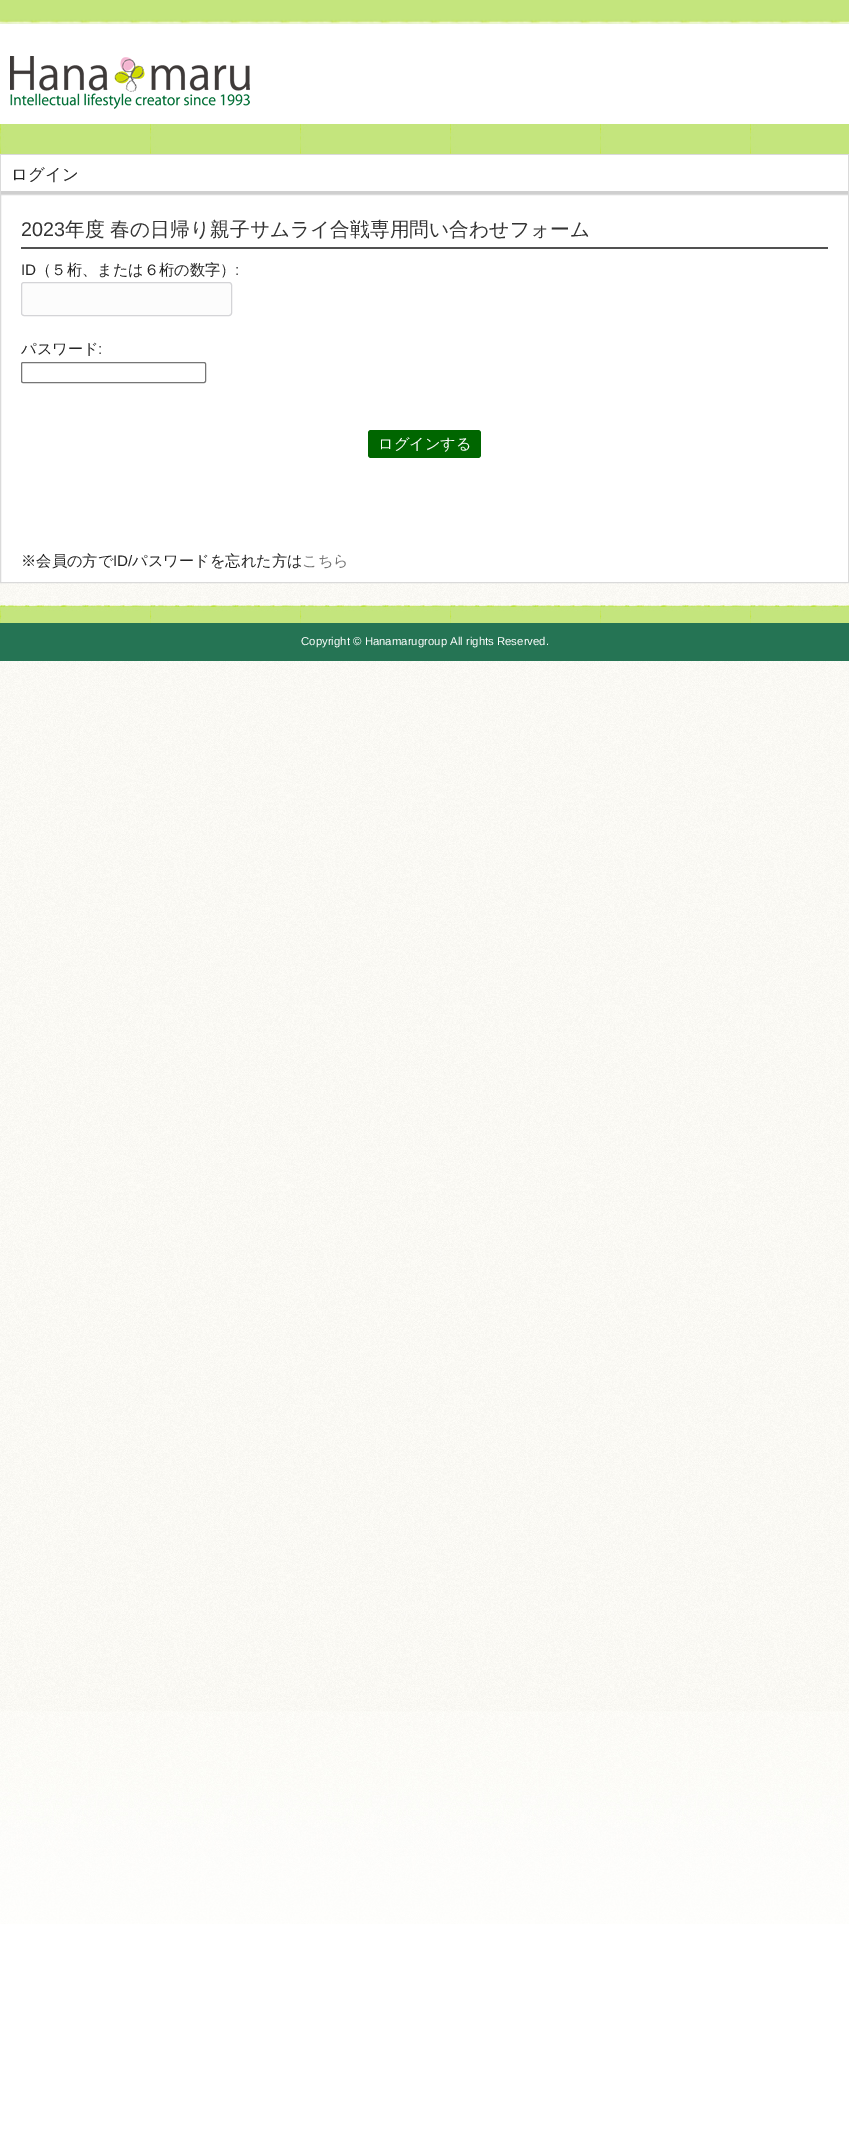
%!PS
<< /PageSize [849 2134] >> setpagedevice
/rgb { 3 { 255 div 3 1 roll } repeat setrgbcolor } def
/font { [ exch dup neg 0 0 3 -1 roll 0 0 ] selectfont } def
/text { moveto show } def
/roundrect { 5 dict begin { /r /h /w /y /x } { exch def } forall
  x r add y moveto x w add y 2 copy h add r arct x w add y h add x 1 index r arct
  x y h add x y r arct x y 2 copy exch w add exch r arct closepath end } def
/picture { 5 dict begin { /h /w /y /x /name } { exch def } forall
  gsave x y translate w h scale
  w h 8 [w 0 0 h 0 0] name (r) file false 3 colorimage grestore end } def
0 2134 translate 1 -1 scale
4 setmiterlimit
255 255 255 rgb
0 0 849 2134 rectfill
(img_01.rgb) 0 124 849 1800 picture
(img_02.rgb) 0 0 849 24 picture
(img_03.rgb) 10 56 240 53 picture
1 155 847 36 rectfill
207 207 207 rgb
0 191 849 3 rectfill
218 218 218 rgb
0 154 849 1 rectfill
848 154 1 40 rectfill
0 154 1 40 rectfill
255 255 255 rgb
0.5 194.5 moveto 848 0 rlineto 0 388 rlineto -848 0 rlineto closepath gsave fill grestore
218 218 218 rgb
stroke
81 81 81 rgb
21 247 807 2 rectfill
252 252 252 rgb
21.5 282.5 210 33 2.5 roundrect gsave fill grestore
212 212 215 rgb
stroke
118 118 118 rgb
21.5 362.5 184 20 1.5 roundrect stroke
0 102 0 rgb
368 430 113 28 3 roundrect fill
(img_04.rgb) 0 603 849 20 picture
37 116 84 rgb
0 623 849 38 rectfill
/WenQuanYiZenHei-Medium 16.5 font
37 37 37 rgb
(ログイン) 11 180 text
/LiberationSans-Regular 19.75 font
51 51 51 rgb
(2023) 21 236 text
/WenQuanYiZenHei-Medium 19.75 font
(年度 春の日帰り親子サムライ合戦専用問い合わせフォーム) 65 236 text
/LiberationSans-Regular 15.25 font
37 37 37 rgb
(ID) 21 275 text
/WenQuanYiZenHei-Medium 15.25 font
(（５桁、または６桁の数字）) 36 275 text
/LiberationSans-Regular 15.25 font
(:) 235 275 text
/WenQuanYiZenHei-Medium 15.25 font
(パスワード) 21 354 text
/LiberationSans-Regular 15.25 font
(:) 98 354 text
/WenQuanYiZenHei-Medium 15.25 font
255 255 255 rgb
(ログインする) 378 449 text
37 37 37 rgb
(※会員の方で) 21 566 text
/LiberationSans-Regular 15.25 font
(ID/) 113 566 text
/WenQuanYiZenHei-Medium 15.25 font
(パスワードを忘れた方は) 132 566 text
119 119 119 rgb
(こちら) 302 566 text
/LiberationSans-Regular 11.4 font
255 255 255 rgb
(Copyright © Hanamarugroup All rights Reserved.) 301 645 text
showpage
